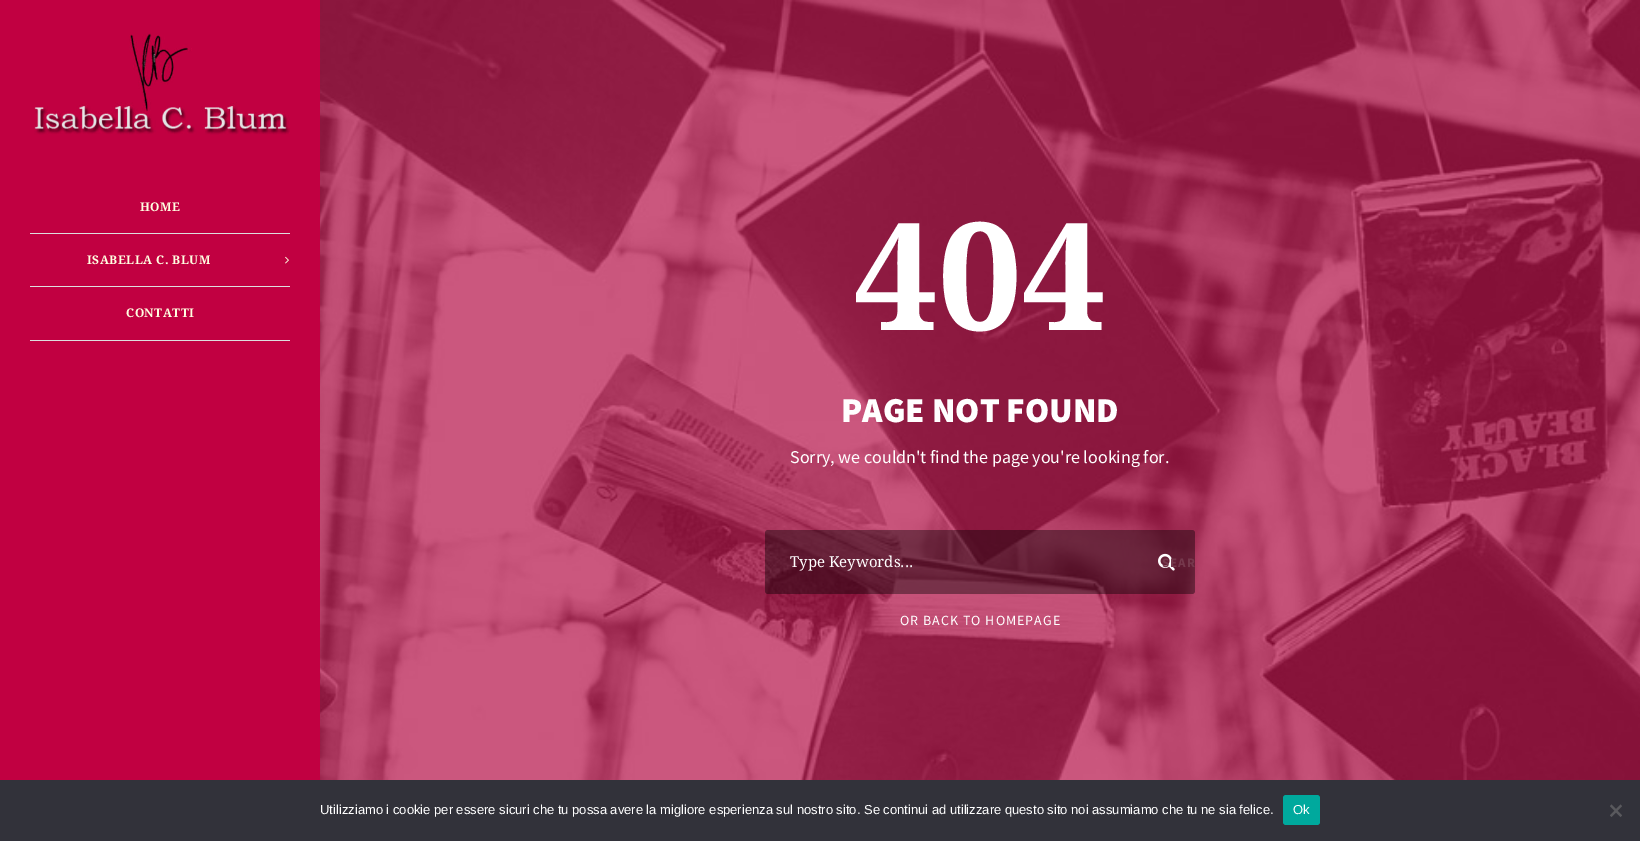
%!PS
<< /PageSize [1640 841] /PageUsesTransparency true >> setpagedevice
/rgb { 3 { 255 div 3 1 roll } repeat setrgbcolor } def
/font { [ exch dup neg 0 0 3 -1 roll 0 0 ] selectfont } def
/text { moveto show } def
/alpha { dup .setfillconstantalpha .setstrokeconstantalpha } def
/roundrect { 5 dict begin { /r /h /w /y /x } { exch def } forall
  x r add y moveto x w add y 2 copy h add r arct x w add y h add x 1 index r arct
  x y h add x y r arct x y 2 copy exch w add exch r arct closepath end } def
/picture { 5 dict begin { /h /w /y /x /name } { exch def } forall
  gsave x y translate w h scale
  w h 8 [w 0 0 h 0 0] name (r) file false 3 colorimage grestore end } def
0 .pushpdf14devicefilter
0 841 translate 1 -1 scale
4 setmiterlimit
193 0 65 rgb
0 0 1640 841 rectfill
(img_01.rgb) 34 33 256 102 picture
221 221 221 rgb
30 233 260 1 rectfill
30 286 260 1 rectfill
(img_02.rgb) 285 256 4 8 picture
30 340 260 1 rectfill
(img_03.rgb) 320 0 1320 780 picture
0.4 alpha
0 0 0 rgb
765 530 430 64 3 roundrect fill
1 alpha
(img_04.rgb) 1158 553 17 18 picture
50 50 58 rgb
0 780 1640 61 rectfill
0 169 157 rgb
1283 795 37 30 3 roundrect fill
89 89 93 rgb
1620.5 804.5 moveto 1.5 1.5 rlineto -10.5 11 rlineto -1.5 -1.5 rlineto closepath fill
1610 806 moveto 1.5 -1.5 rlineto 10.5 11 rlineto -1.5 1.5 rlineto closepath fill
/DroidSerif-Bold 12 font
255 255 225 rgb
140 211 moveto 0.5 0 (HOME) ashow
87 264 moveto 0.5 0 (ISABELLA C. BLUM) ashow
126 317 moveto 0.5 0 (CONTATTI) ashow
/DroidSerif-Bold 150 font
255 255 255 rgb
(404) 854 330 text
/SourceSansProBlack-Black 35 font
(PAGE NOT FOUND) 841 422 text
/SourceSansPro-Regular 18 font
(Sorry, we couldn't find the page you're looking for.) 790 463 text
/DroidSerif-Regular 15 font
(Type Keywords...) 790 567 text
/SourceSansPro-Bold 13 font
117 56 76 rgb
1162 567 moveto 1 0 (SEAR) ashow
/SourceSansPro-Regular 14 font
255 255 255 rgb
900 625 moveto 1 0 (OR BACK TO HOMEPAGE) ashow
/LiberationSans-Regular 13 font
(Utilizziamo i cookie per essere sicuri che tu possa avere la migliore esperienza sul nostro sito. Se continui ad utilizzare questo sito noi assumiamo che tu ne sia felice.) 320 814 text
(Ok) 1293 814 text
.poppdf14devicefilter showpage
